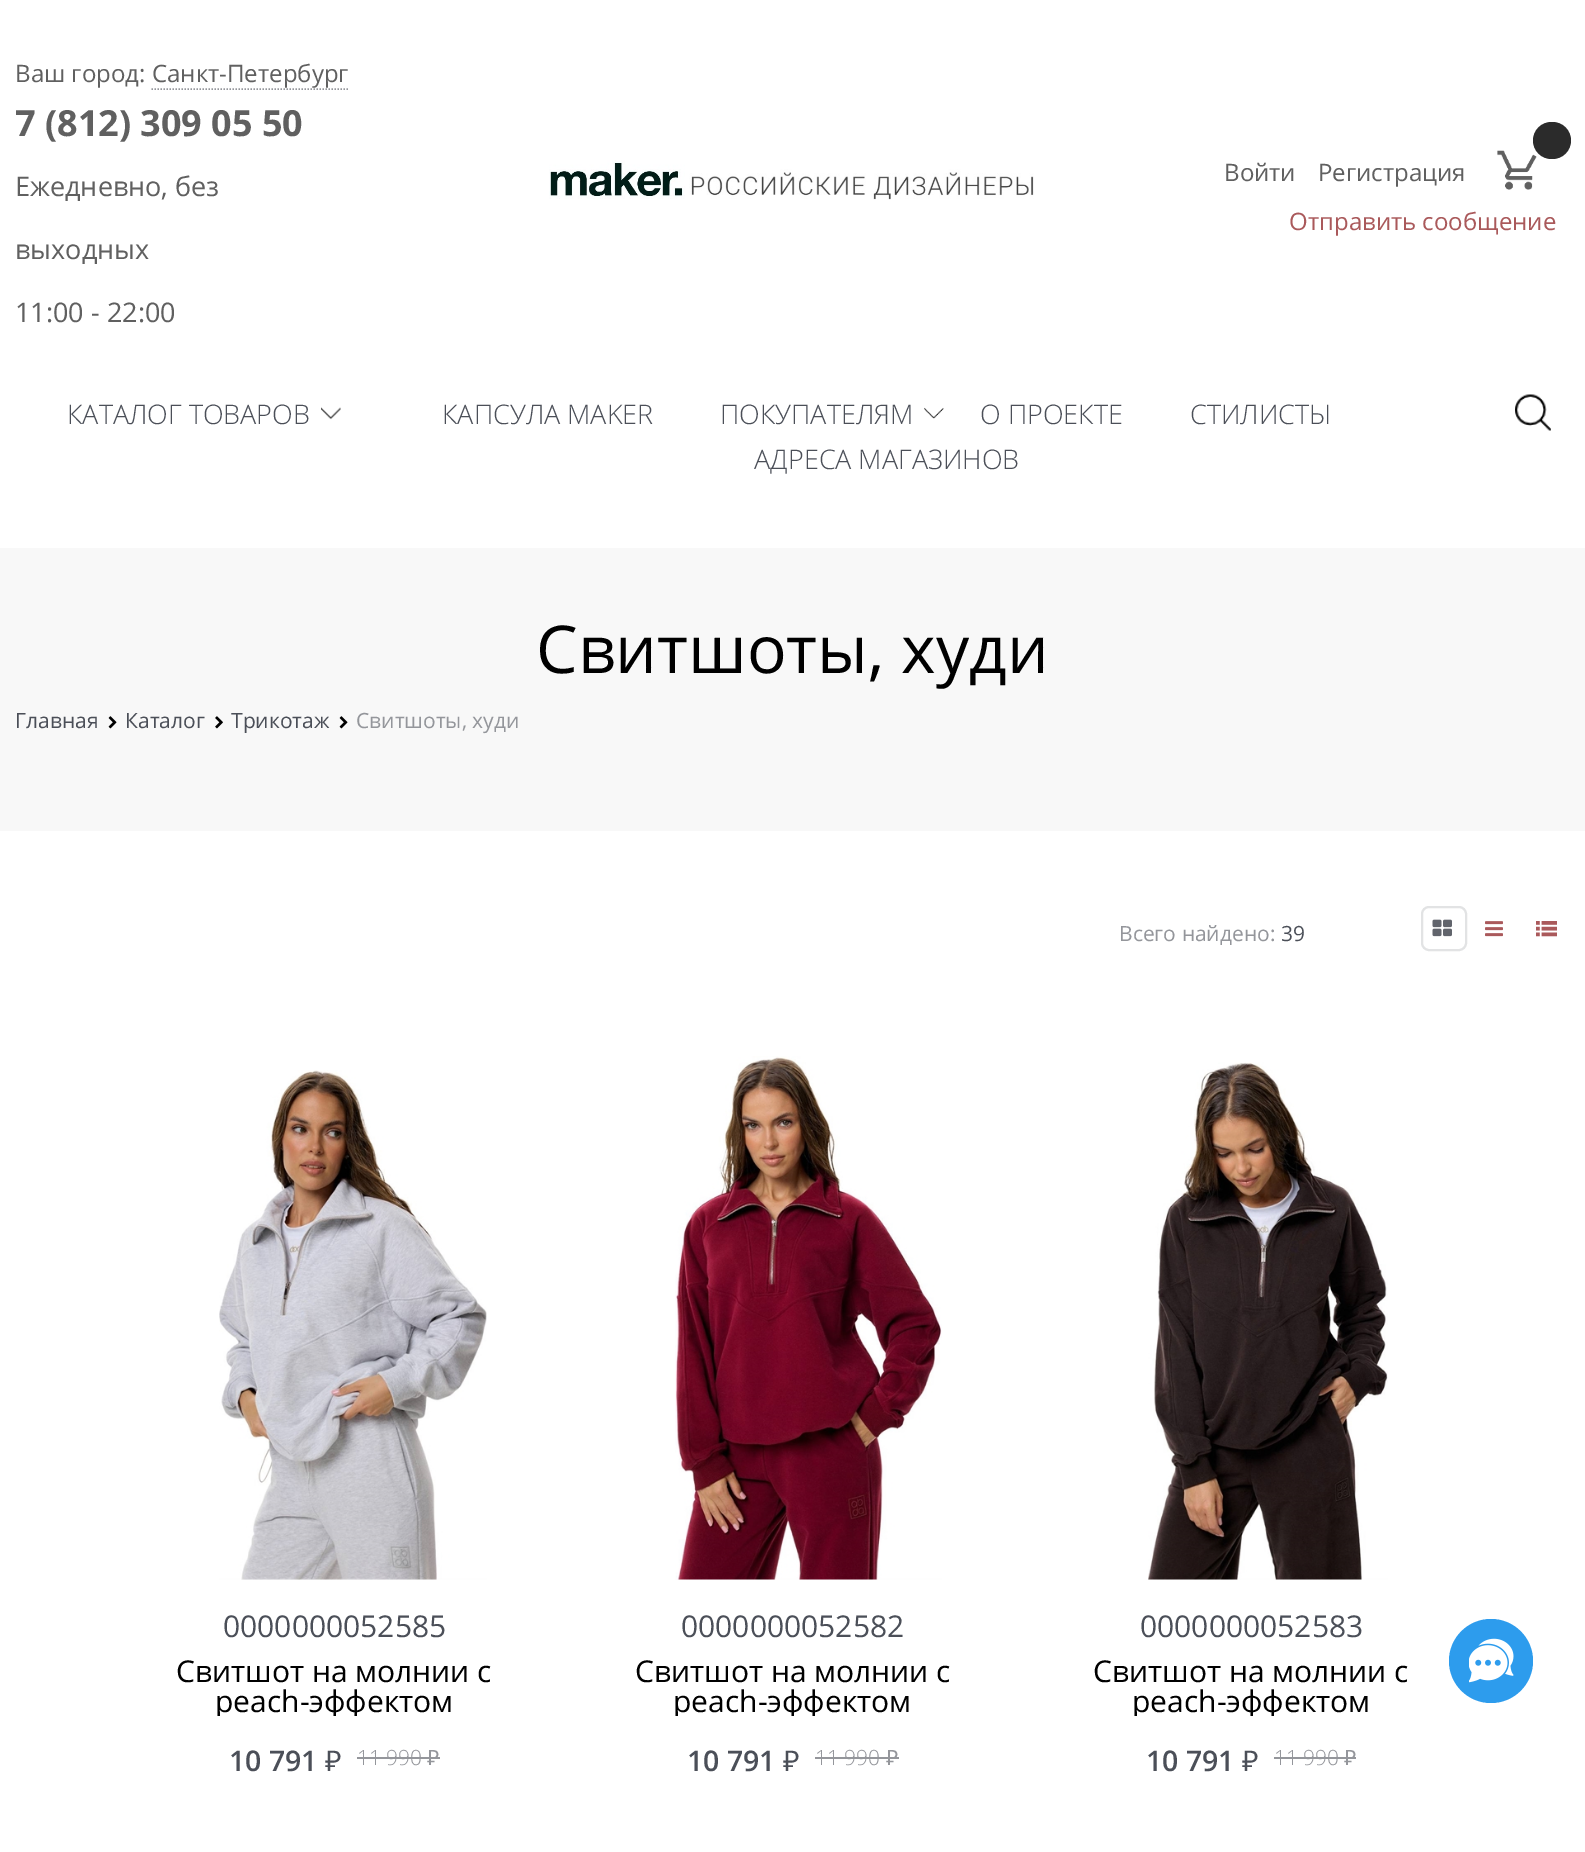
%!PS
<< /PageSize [1585 1852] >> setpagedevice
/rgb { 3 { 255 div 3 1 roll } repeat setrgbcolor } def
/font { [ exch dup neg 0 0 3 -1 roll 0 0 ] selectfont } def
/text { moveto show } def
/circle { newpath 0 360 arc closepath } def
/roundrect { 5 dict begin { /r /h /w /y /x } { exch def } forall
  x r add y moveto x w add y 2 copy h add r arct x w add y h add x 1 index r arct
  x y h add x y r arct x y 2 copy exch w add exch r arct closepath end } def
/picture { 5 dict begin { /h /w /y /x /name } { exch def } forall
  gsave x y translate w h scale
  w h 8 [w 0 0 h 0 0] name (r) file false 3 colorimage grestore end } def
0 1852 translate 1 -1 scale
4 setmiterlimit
255 255 255 rgb
0 0 1585 1852 rectfill
148 150 155 rgb
1.5 setlinewidth
[1.5 1.5] 0 setdash
151.5 89 moveto 196.5 0 rlineto stroke
(img_01.rgb) 549 160 485 40 picture
(img_02.rgb) 1497 150 40 40 picture
43 43 43 rgb
1533 122 38 37 18.5 roundrect fill
(img_03.rgb) 321 407 20 13 picture
(img_04.rgb) 924 407 20 12 picture
(img_05.rgb) 1515 394 36 37 picture
248 248 248 rgb
0 548 1585 283 rectfill
(img_06.rgb) 108 716 9 13 picture
(img_07.rgb) 215 716 8 13 picture
(img_06.rgb) 339 716 9 13 picture
226 227 228 rgb
2 setlinewidth
[] 0 setdash
1422 907 44 43 7 roundrect stroke
(img_08.rgb) 1432 919 20 18 picture
(img_09.rgb) 1485 921 18 16 picture
(img_10.rgb) 1536 921 21 16 picture
(img_11.rgb) 219 1070 268 510 picture
148 150 155 rgb
357 1757 65 2 rectfill
422 1757 18 2 rectfill
(img_12.rgb) 675 1056 267 524 picture
815 1757 66 2 rectfill
881 1757 18 2 rectfill
(img_13.rgb) 1148 1062 240 518 picture
1274 1757 66 2 rectfill
1340 1757 16 2 rectfill
45 156 237 rgb
1491 1661 42 circle fill
(img_14.rgb) 1469 1638 45 45 picture
/OpenSans-Regular 24 font
96 96 96 rgb
(Ваш город: Санкт-Петербург) 15 82 text
/OpenSans-Bold 36 font
(7 \(812\) 309 05 50) 15 136 text
/OpenSans-Regular 27 font
(Ежедневно, без) 15 196 text
(выходных) 15 259 text
(11:00 - 22:00) 15 322 text
/OpenSans-Regular 24 font
(Войти) 1224 181 text
(Регистрация) 1318 181 text
170 89 91 rgb
(Отправить сообщение) 1289 230 text
/OpenSans-Light 27 font
75 79 88 rgb
(КАТАЛОГ ТОВАРОВ) 67 424 text
(КАПСУЛА MAKER) 442 424 text
(ПОКУПАТЕЛЯМ) 720 424 text
(О ПРОЕКТЕ) 980 424 text
(СТИЛИСТЫ) 1190 424 text
(АДРЕСА МАГАЗИНОВ) 754 469 text
/OpenSans-Regular 66 font
0 0 0 rgb
(Свитшоты, худи) 536 673 text
/OpenSans-Regular 21 font
75 79 88 rgb
(Главная) 15 728 text
(Каталог) 125 728 text
(Трикотаж) 231 728 text
148 150 155 rgb
(Свитшоты, худи) 356 728 text
(Всего найдено:) 1119 941 text
75 79 88 rgb
(39) 1281 941 text
/OpenSans-Regular 30 font
(0000000052585) 223 1637 text
0 0 0 rgb
(Свитшот на молнии с) 176 1682 text
gsave
135 1656 399 60 rectclip
(peach-эффектом) 215 1712 text
grestore
/OpenSans-SemiBold 28.5 font
75 79 88 rgb
(10 791) 229 1771 text
/NotoSans-Regular 28.5 font
(₽) 325 1771 text
/OpenSans-Light 21 font
148 150 155 rgb
(11 990) 357 1765 text
/NotoSans-Regular 21 font
(₽) 427 1765 text
/OpenSans-Regular 30 font
75 79 88 rgb
(0000000052582) 681 1637 text
0 0 0 rgb
(Свитшот на молнии с) 635 1682 text
gsave
594 1656 398 60 rectclip
(peach-эффектом) 673 1712 text
grestore
/OpenSans-SemiBold 28.5 font
75 79 88 rgb
(10 791) 687 1771 text
/NotoSans-Regular 28.5 font
(₽) 783 1771 text
/OpenSans-Light 21 font
148 150 155 rgb
(11 990) 815 1765 text
/NotoSans-Regular 21 font
(₽) 886 1765 text
/OpenSans-Regular 30 font
75 79 88 rgb
(0000000052583) 1140 1637 text
0 0 0 rgb
(Свитшот на молнии с) 1093 1682 text
gsave
1052 1656 399 60 rectclip
(peach-эффектом) 1132 1712 text
grestore
/OpenSans-SemiBold 28.5 font
75 79 88 rgb
(10 791) 1146 1771 text
/NotoSans-Regular 28.5 font
(₽) 1242 1771 text
/OpenSans-Light 21 font
148 150 155 rgb
(11 990) 1274 1765 text
/NotoSans-Regular 21 font
(₽) 1344 1765 text
showpage
